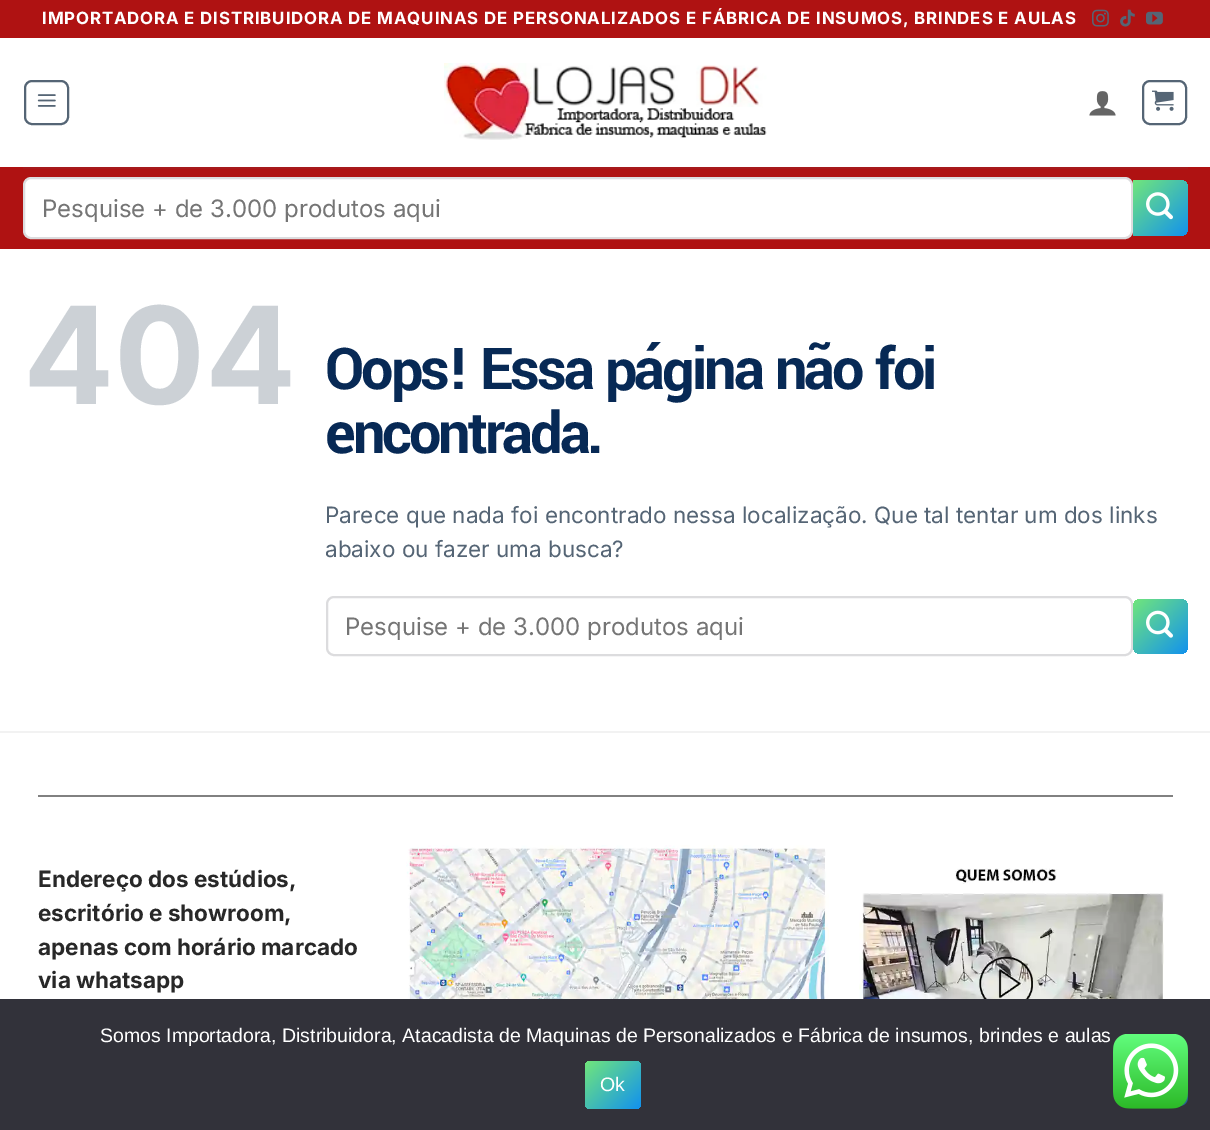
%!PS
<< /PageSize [1210 1130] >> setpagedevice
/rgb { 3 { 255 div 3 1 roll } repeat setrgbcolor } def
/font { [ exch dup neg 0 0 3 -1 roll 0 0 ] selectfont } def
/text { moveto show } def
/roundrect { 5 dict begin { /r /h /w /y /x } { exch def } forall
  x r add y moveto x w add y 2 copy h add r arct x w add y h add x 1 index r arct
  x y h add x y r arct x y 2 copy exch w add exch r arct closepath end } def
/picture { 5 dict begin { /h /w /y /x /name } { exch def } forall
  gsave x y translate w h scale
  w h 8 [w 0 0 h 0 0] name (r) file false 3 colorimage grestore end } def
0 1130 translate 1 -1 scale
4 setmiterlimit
255 255 255 rgb
0 0 1210 1130 rectfill
175 18 18 rgb
0 0 1210 38 rectfill
(img_01.rgb) 1092 9 17 18 picture
(img_02.rgb) 1120 9 15 18 picture
(img_03.rgb) 1146 11 17 14 picture
85 101 117 rgb
2 setlinewidth
25 81 43 43 7 roundrect stroke
(img_04.rgb) 37 94 19 13 picture
(img_05.rgb) 444 63 323 77 picture
(img_06.rgb) 1089 91 27 25 picture
1143 81 43 43 7 roundrect stroke
(img_07.rgb) 1152 90 22 21 picture
175 18 18 rgb
0 167 1210 82 rectfill
166 26 28 rgb
23 167 1165 2 rectfill
255 255 255 rgb
24 178 1108 60 7 roundrect gsave fill grestore
220 220 222 rgb
stroke
gsave 1133 180 moveto 47 0 rlineto 4.5 0 8 3.5 8 8 rcurveto 0 40 rlineto 0 4.5 -3.5 8 -8 8 rcurveto -47 0 rlineto closepath clip newpath
<< /ShadingType 2 /ColorSpace /DeviceRGB /Coords [1133 180 1188 236] /Extend [true true] /Function << /FunctionType 2 /Domain [0 1] /C0 [0.443 0.902 0.482] /C1 [0.071 0.573 0.933] /N 1 >> >> shfill grestore
(img_08.rgb) 1146 192 27 28 picture
327 597 805 58 7 roundrect stroke
gsave 1133 599 55 55 8 roundrect clip newpath
<< /ShadingType 2 /ColorSpace /DeviceRGB /Coords [1133 599 1188 654] /Extend [true true] /Function << /FunctionType 2 /Domain [0 1] /C0 [0.443 0.902 0.482] /C1 [0.071 0.573 0.933] /N 1 >> >> shfill grestore
(img_09.rgb) 1146 610 27 28 picture
242 242 242 rgb
0 731 1210 2 rectfill
129 129 129 rgb
38 795 1135 2 rectfill
(img_10.rgb) 406 845 423 154 picture
(img_11.rgb) 859 868 305 131 picture
50 50 58 rgb
0 999 1210 131 rectfill
gsave 585 1061 56 48 5 roundrect clip newpath
<< /ShadingType 2 /ColorSpace /DeviceRGB /Coords [587 1059 639 1110] /Extend [true true] /Function << /FunctionType 2 /Domain [0 1] /C0 [0.443 0.902 0.482] /C1 [0.071 0.573 0.933] /N 1 >> >> shfill grestore
gsave 1152 1050 36 56 8 roundrect clip newpath
<< /ShadingType 2 /ColorSpace /DeviceRGB /Coords [1147 1055 1193 1101] /Extend [true true] /Function << /FunctionType 2 /Domain [0 1] /C0 [0.322 0.549 0.357] /C1 [0.133 0.384 0.58] /N 1 >> >> shfill grestore
(img_12.rgb) 1113 1034 75 75 picture
/Inter-Bold 16.88 font
255 255 255 rgb
42 24 moveto 0.85 0 (IMPORTADORA E DISTRIBUIDORA DE MAQUINAS DE PERSONALIZADOS E FÁBRICA DE INSUMOS, BRINDES E AULAS) ashow
/Inter-Regular 24 font
117 117 117 rgb
(Pesquise + de 3.000 produtos aqui) 42 217 text
/Inter-Bold 135 font
204 209 214 rgb
(404) 23 404 text
/Yantramanav-Bold 64 font
7 41 85 rgb
325 389 moveto -3 0 (Oops! Essa página não foi) ashow
325 453 moveto -3 0 (encontrada.) ashow
/Inter-Regular 22.5 font
85 101 117 rgb
(Parece que nada foi encontrado nessa localização. Que tal tentar um dos links) 325 523 text
(abaixo ou fazer uma busca?) 325 557 text
/Inter-Regular 24 font
117 117 117 rgb
(Pesquise + de 3.000 produtos aqui) 345 635 text
/Inter-Bold 22.5 font
40 40 40 rgb
(Endereço dos estúdios,) 38 887 text
(escritório e showroom,) 38 921 text
(apenas com horário marcado) 38 955 text
(via whatsapp) 38 988 text
/LiberationSans-Regular 19.5 font
255 255 255 rgb
(Somos Importadora, Distribuidora, Atacadista de Maquinas de Personalizados e Fábrica de insumos, brindes e aulas) 100 1042 text
(Ok) 600 1091 text
showpage
